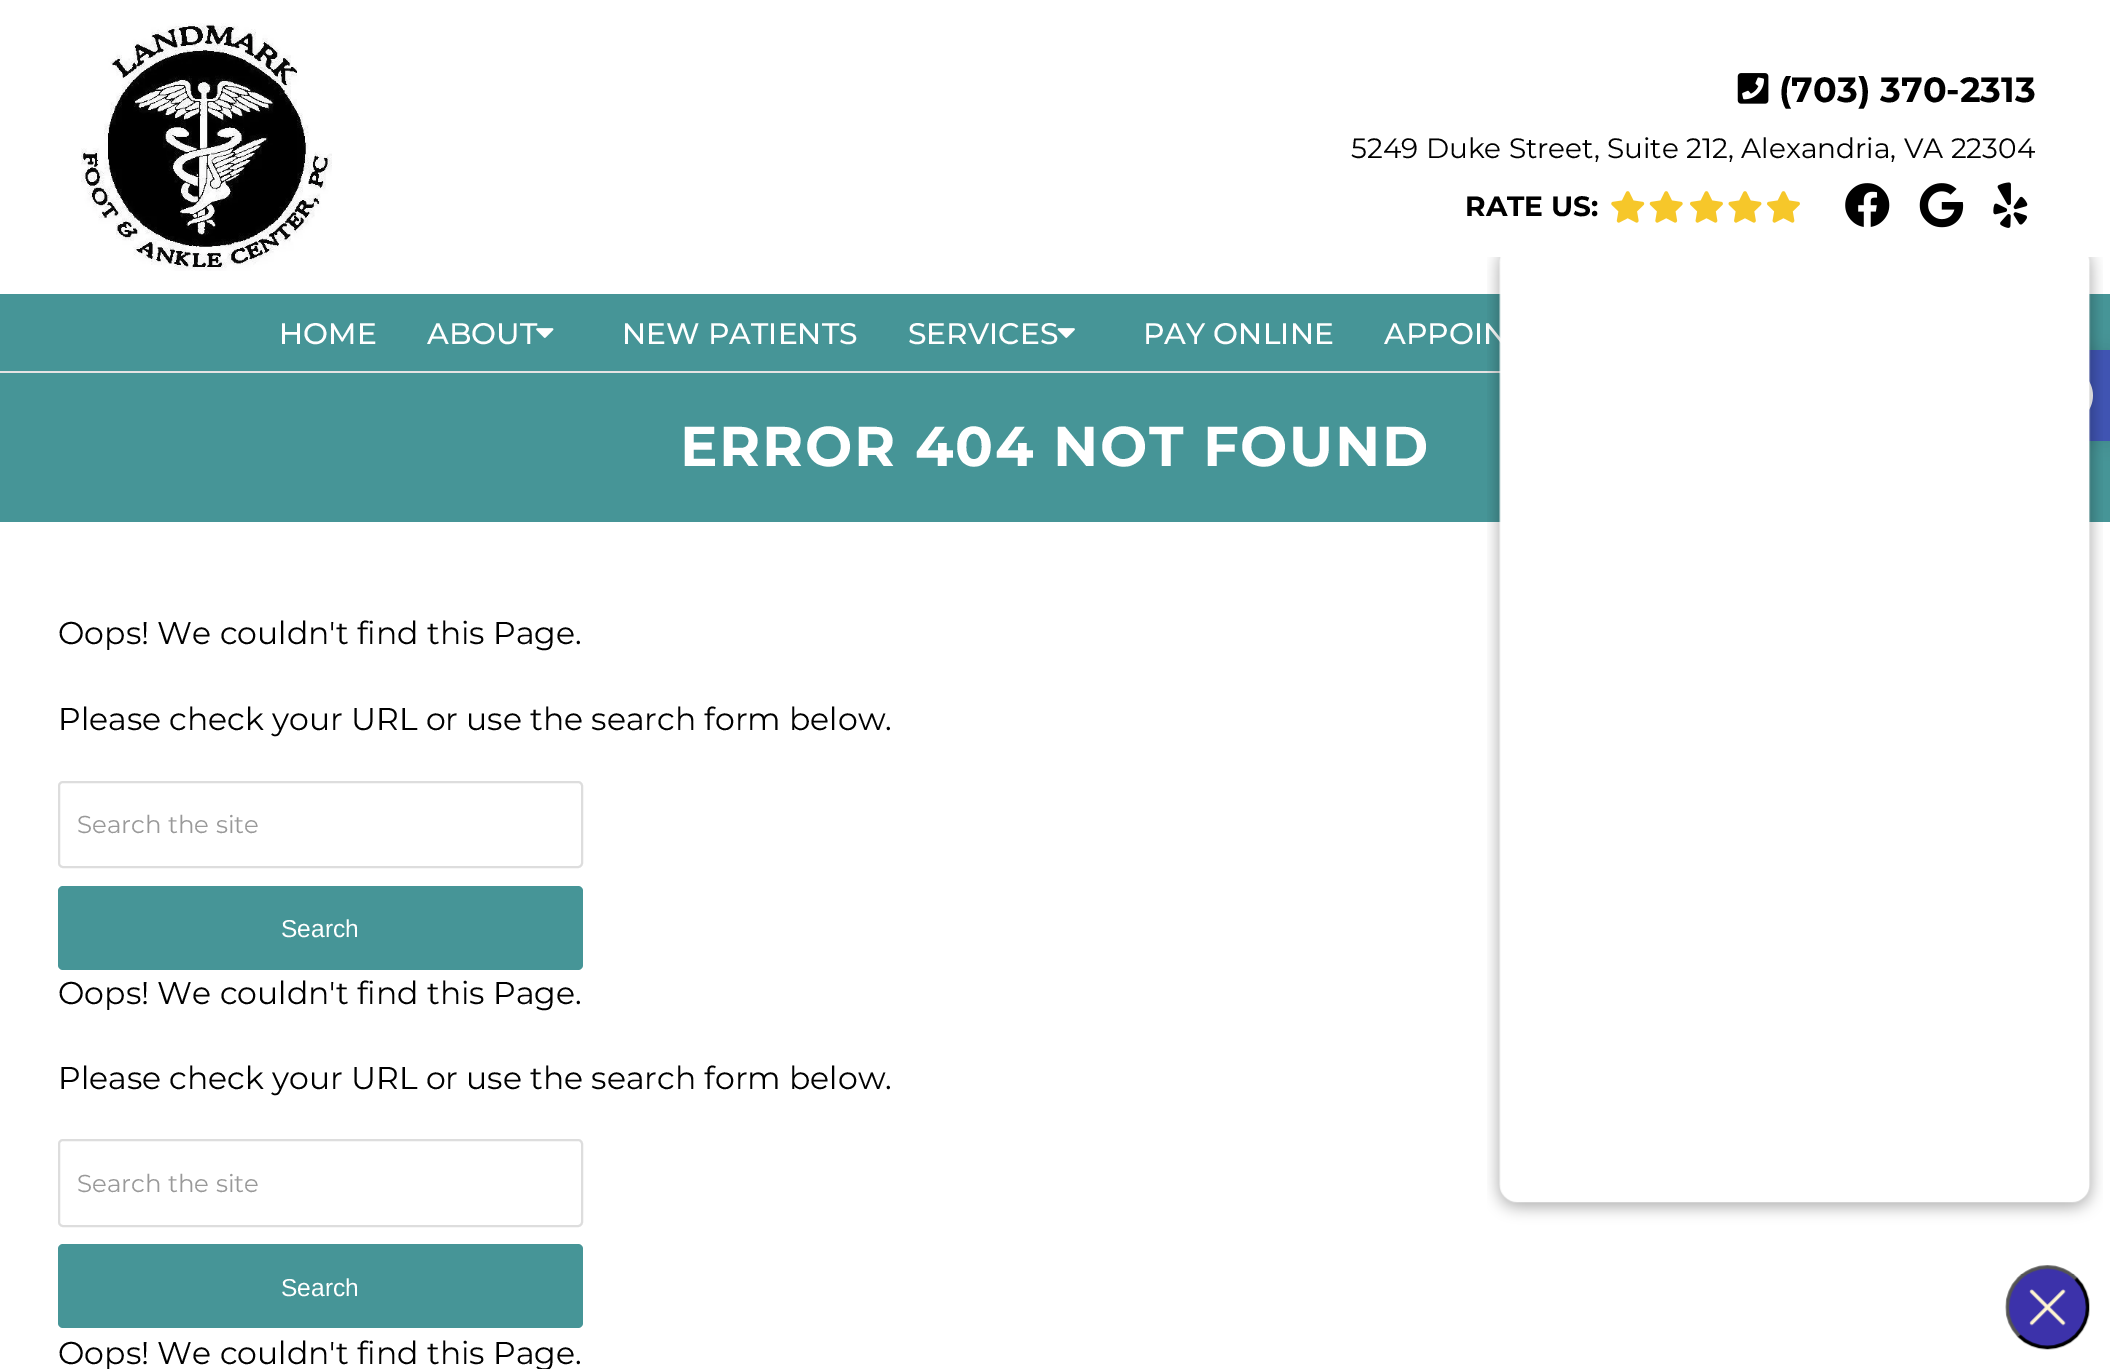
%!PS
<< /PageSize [2110 1369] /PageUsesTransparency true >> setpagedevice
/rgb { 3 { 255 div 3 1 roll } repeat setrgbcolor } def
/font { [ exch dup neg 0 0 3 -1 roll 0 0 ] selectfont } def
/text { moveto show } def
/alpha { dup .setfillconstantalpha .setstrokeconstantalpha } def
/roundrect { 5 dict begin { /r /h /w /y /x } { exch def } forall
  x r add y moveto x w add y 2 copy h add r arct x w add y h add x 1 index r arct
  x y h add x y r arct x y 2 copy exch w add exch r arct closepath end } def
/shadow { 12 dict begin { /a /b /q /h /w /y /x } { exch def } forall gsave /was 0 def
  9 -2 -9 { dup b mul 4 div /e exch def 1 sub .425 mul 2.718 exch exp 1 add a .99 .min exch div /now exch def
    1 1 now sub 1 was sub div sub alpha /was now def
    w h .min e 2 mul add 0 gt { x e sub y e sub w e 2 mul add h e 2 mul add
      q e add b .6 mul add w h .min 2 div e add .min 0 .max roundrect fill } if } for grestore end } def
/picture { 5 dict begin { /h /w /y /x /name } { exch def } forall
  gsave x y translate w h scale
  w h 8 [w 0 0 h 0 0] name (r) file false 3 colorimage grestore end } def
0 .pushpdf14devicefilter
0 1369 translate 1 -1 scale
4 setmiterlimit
229 227 228 rgb
0 0 2110 1369 rectfill
255 255 255 rgb
0 0 2110 294 rectfill
(img_01.rgb) 81 23 251 248 picture
(img_02.rgb) 1737 73 32 31 picture
(img_03.rgb) 1611 191 34 32 picture
(img_04.rgb) 1649 191 34 32 picture
(img_05.rgb) 1690 191 33 32 picture
(img_06.rgb) 1728 191 34 32 picture
(img_05.rgb) 1767 191 33 32 picture
(img_07.rgb) 1845 183 45 44 picture
(img_08.rgb) 1919 183 45 45 picture
(img_09.rgb) 1993 182 35 46 picture
70 149 151 rgb
0 294 2110 77 rectfill
(img_11.rgb) 1057 328 18 10 picture
0 373 2110 149 rectfill
255 255 255 rgb
0 522 2110 847 rectfill
221 221 221 rgb
2 setlinewidth
59 782 523 85 4 roundrect stroke
70 149 151 rgb
58 886 525 84 5 roundrect fill
221 221 221 rgb
59 1140 523 86 4 roundrect stroke
70 149 151 rgb
58 1244 525 84 5 roundrect fill
0 0 0 rgb
2020 350 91 91 0 9 0.1 shadow
64 84 178 rgb
2089 350 21 91 rectfill
(img_13.rgb) 2089 381 4 29 picture
/Montserrat-Bold 35 font
0 0 0 rgb
(\(703\) 370-2313) 1779 102 text
/Montserrat-Regular 28 font
(5249 Duke Street, Suite 212, Alexandria, VA 22304) 1351 158 text
/Montserrat-Bold 28 font
(RATE US:) 1465 216 text
/Montserrat-Medium 29.75 font
255 255 255 rgb
(HOME) 279 344 text
(ABOUT) 427 344 text
(img_10.rgb) 536 328 18 10 picture
(NEW PATIENTS) 622 344 text
(SERVICES) 908 344 text
(PAY ONLINE) 1143 344 text
(APPOIN) 1384 344 text
/Montserrat-Bold 56 font
680 466 moveto 1.75 0 (ERROR 404 NOT FOUND) ashow
/Montserrat-Regular 31.5 font
0 0 0 rgb
(Oops! We couldn't find this Page.) 58 644 text
(Please check your URL or use the search form below.) 58 730 text
/Montserrat-Regular 24.5 font
153 153 153 rgb
(Search the site) 77 833 text
/LiberationSans-Regular 24.5 font
255 255 255 rgb
(Search) 281 937 text
/Montserrat-Regular 31.5 font
0 0 0 rgb
(Oops! We couldn't find this Page.) 58 1004 text
(Please check your URL or use the search form below.) 58 1089 text
/Montserrat-Regular 24.5 font
153 153 153 rgb
(Search the site) 77 1192 text
/LiberationSans-Regular 24.5 font
255 255 255 rgb
(Search) 281 1296 text
/Montserrat-Regular 31.5 font
0 0 0 rgb
(Oops! We couldn't find this Page.) 58 1364 text
(img_12.rgb) 1487 257 616 1093 picture
.poppdf14devicefilter showpage
